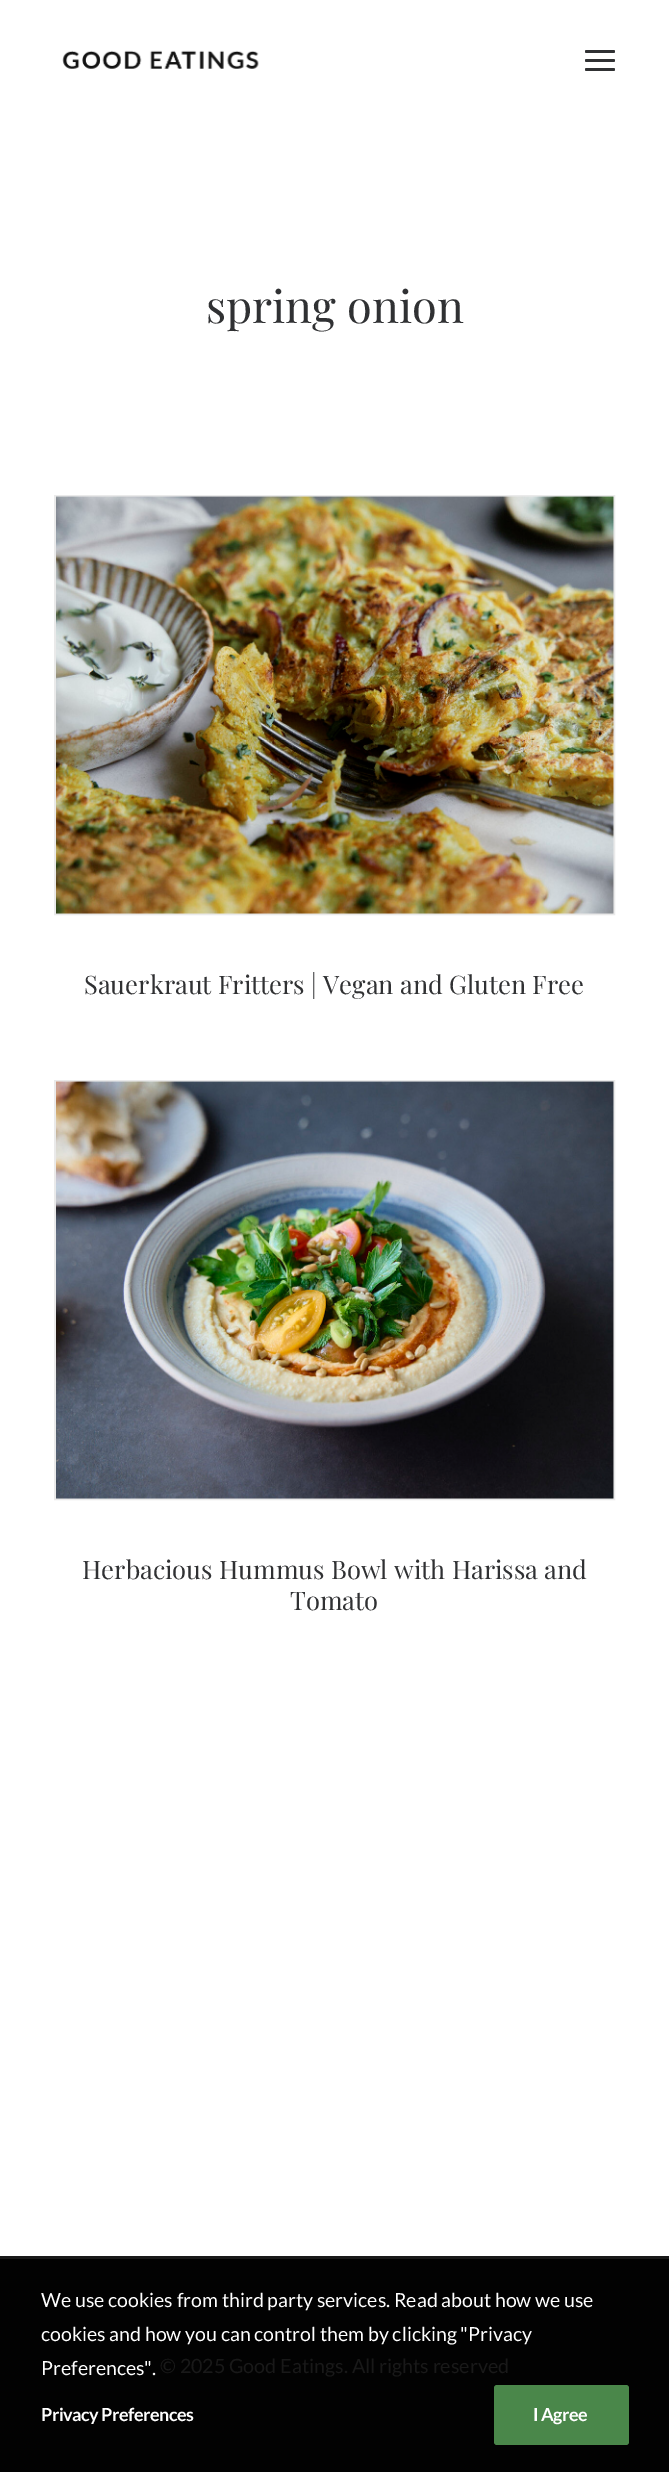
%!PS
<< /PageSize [669 2472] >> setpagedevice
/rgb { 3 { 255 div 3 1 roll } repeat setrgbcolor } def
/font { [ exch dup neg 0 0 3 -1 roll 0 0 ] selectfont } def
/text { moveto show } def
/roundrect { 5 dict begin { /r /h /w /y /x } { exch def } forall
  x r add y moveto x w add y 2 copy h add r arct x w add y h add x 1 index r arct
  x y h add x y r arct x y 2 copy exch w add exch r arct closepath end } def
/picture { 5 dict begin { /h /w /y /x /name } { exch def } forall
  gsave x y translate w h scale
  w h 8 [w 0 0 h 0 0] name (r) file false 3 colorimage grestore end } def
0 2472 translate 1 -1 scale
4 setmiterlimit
255 255 255 rgb
0 0 669 2472 rectfill
25 25 25 rgb
0 2256 669 3 rectfill
(img_01.rgb) 62 50 197 19 picture
48 49 51 rgb
585 59 30 3 1.5 roundrect fill
585 50 30 3 1.5 roundrect fill
585 68 30 3 1.5 roundrect fill
234 234 234 rgb
2 setlinewidth
55 496 559 418 rectstroke
(img_02.rgb) 56 496 558 418 picture
55 1081 559 418 rectstroke
(img_03.rgb) 56 1081 558 418 picture
2 2 2 rgb
0 2259 669 213 rectfill
74 135 74 rgb
494 2385 135 60 3 roundrect fill
/PlayfairDisplay-Regular 45 font
48 49 51 rgb
(spring onion) 206 323 text
/PlayfairDisplay-Regular 25.5 font
(Sauerkraut Fritters | Vegan and Gluten Free) 84 994 text
(Herbacious Hummus Bowl with Harissa and) 82 1579 text
(Tomato) 290 1610 text
/Lato-Regular 19.7 font
25 25 25 rgb
(© 2025 Good Eatings. All rights reserved) 160 2373 text
/Lato-Regular 19.5 font
255 255 255 rgb
(We use cookies from third party services. Read about how we use) 41 2307 text
(cookies and how you can control them by clicking "Privacy) 41 2341 text
(Preferences".) 41 2375 text
/Lato-Bold 18 font
41 2421 moveto -0.5 0 (Privacy Preferences) ashow
533 2421 moveto -0.5 0 (I Agree) ashow
showpage
